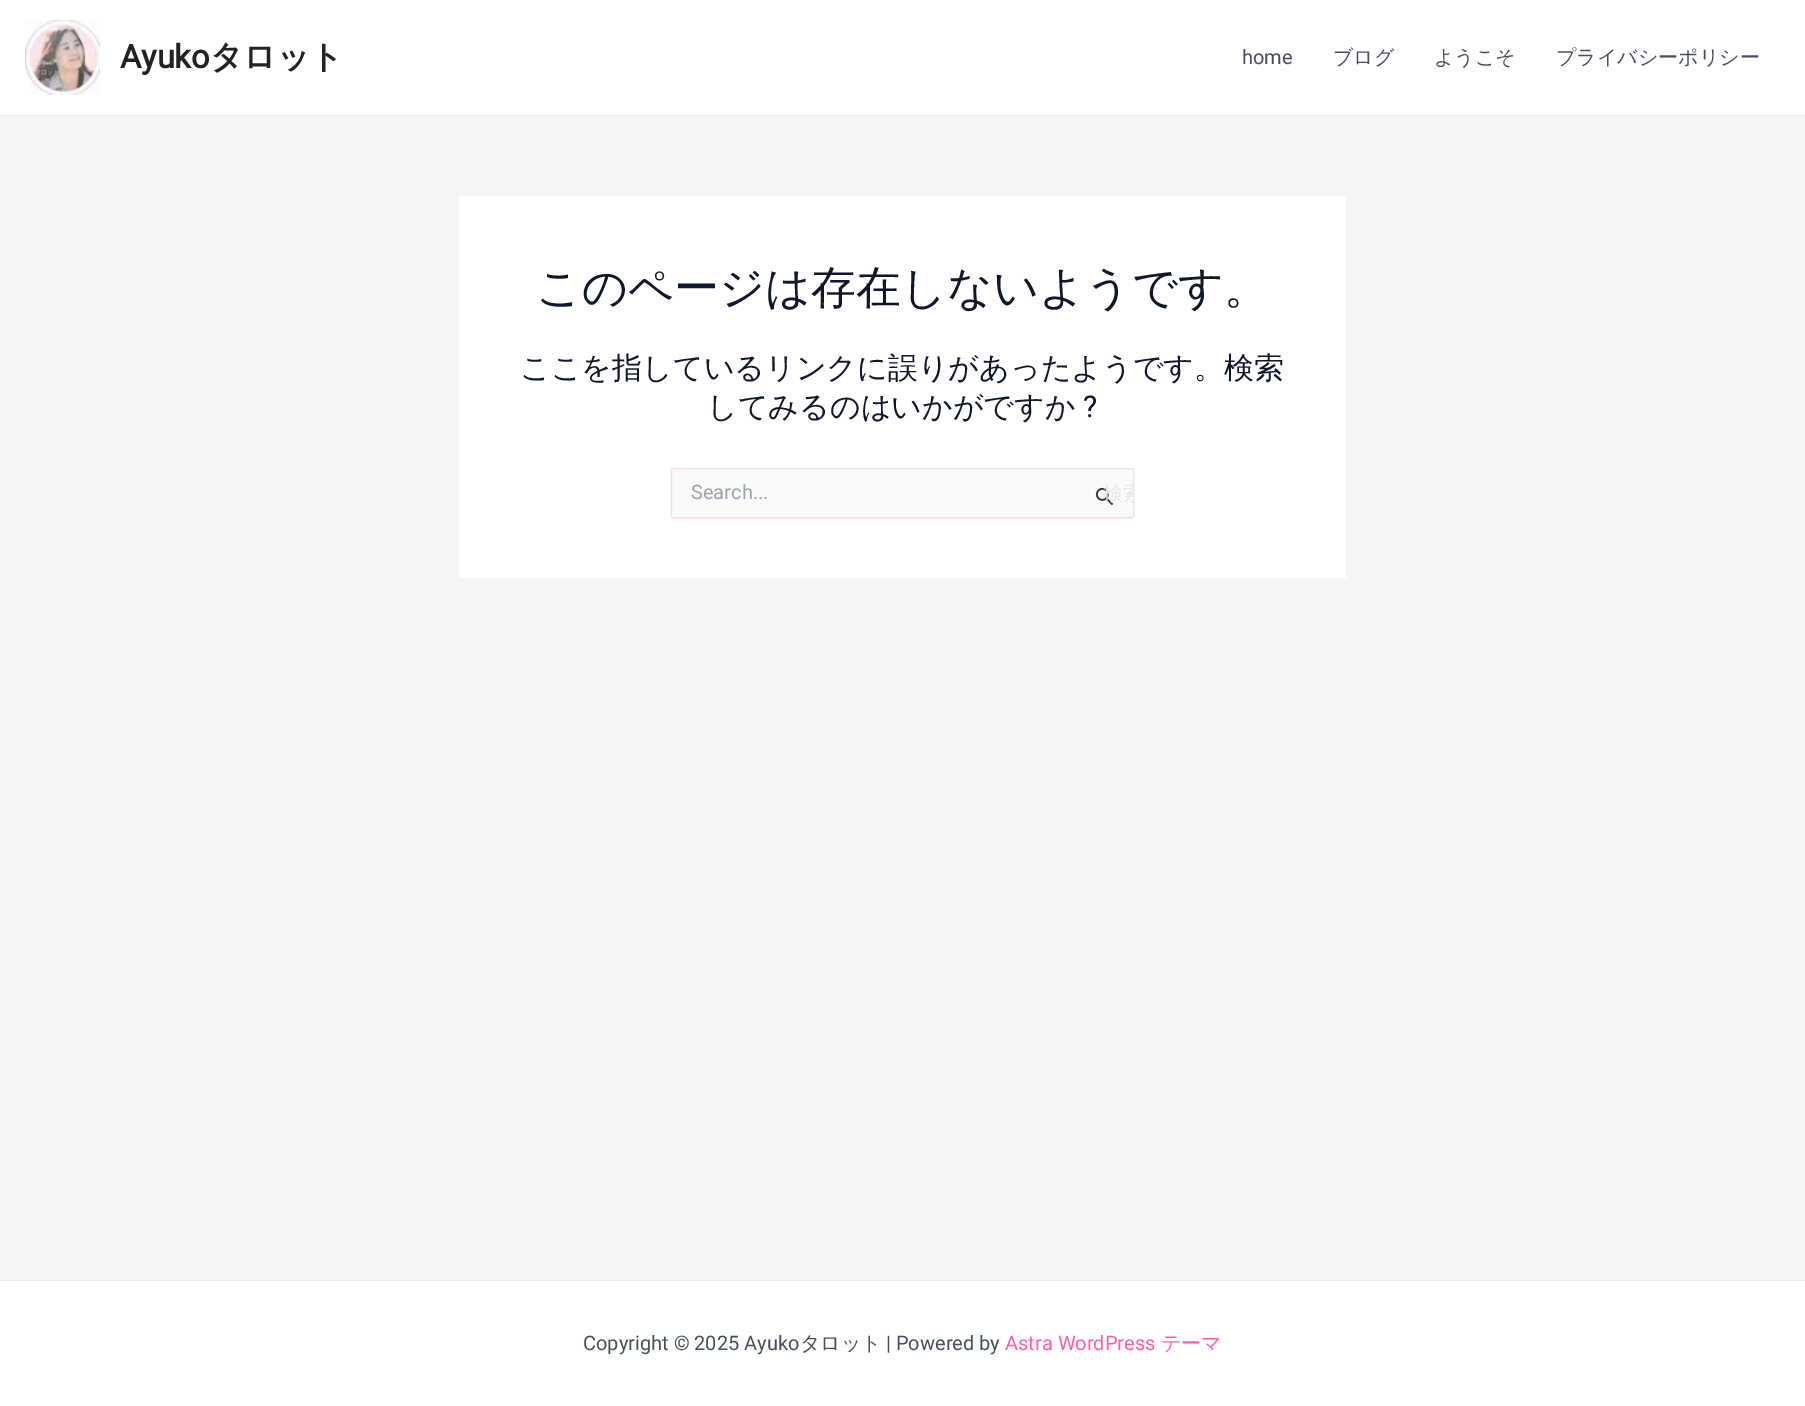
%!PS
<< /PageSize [1805 1406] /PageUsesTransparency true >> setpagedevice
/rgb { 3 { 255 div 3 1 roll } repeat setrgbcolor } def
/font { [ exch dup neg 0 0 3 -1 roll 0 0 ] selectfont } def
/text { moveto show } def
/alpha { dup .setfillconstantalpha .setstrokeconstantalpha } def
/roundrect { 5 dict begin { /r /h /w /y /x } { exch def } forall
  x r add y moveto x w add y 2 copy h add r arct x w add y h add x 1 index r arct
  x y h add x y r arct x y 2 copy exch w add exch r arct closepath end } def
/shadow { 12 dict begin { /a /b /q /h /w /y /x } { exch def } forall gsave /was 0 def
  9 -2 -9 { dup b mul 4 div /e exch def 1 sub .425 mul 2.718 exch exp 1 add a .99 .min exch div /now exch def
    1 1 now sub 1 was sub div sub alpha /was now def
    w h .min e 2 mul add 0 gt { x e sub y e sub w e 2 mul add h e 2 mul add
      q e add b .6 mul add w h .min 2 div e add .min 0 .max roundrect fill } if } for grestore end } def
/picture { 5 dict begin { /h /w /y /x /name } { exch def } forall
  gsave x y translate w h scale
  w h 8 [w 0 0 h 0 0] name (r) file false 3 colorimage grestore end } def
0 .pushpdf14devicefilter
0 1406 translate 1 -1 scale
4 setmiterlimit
245 245 245 rgb
0 0 1805 1406 rectfill
255 255 255 rgb
0 0 1805 115 rectfill
234 234 234 rgb
0 115 1805 1 rectfill
(img_01.rgb) 25 20 75 75 picture
255 255 255 rgb
459 196 887 382 rectfill
0 0 0 rgb
671 469 463 50 2.5 1 0.05 shadow
250 250 250 rgb
671.5 468.5 462 49 2 roundrect gsave fill grestore
250 216 233 rgb
stroke
(img_02.rgb) 1095 487 18 19 picture
255 255 255 rgb
0 1281 1805 125 rectfill
234 234 234 rgb
0 1280 1805 1 rectfill
/Roboto-Bold 32.5 font
34 34 34 rgb
(Ayuko) 120 68 text
/WenQuanYiZenHei-Bold 32.5 font
(タロット) 210 68 text
/Roboto-Regular 20 font
69 79 94 rgb
(home) 1242 64 text
/WenQuanYiZenHei-Medium 20 font
(ブログ) 1333 64 text
(ようこそ) 1434 64 text
(プライバシーポリシー) 1556 64 text
/WenQuanYiZenHei-Medium 45 font
15 23 42 rgb
(このページは存在しないようです。) 536 303 text
/WenQuanYiZenHei-Medium 30 font
(ここを指しているリンクに誤りがあったようです。検索) 520 378 text
(してみるのはいかがですか) 707 417 text
/Roboto-Regular 30 font
(?) 1083 417 text
/Roboto-Regular 20 font
156 163 175 rgb
(Search...) 691 499 text
gsave
1078 468 56 52 2.5 roundrect clip newpath
/WenQuanYiZenHei-Medium 20 font
232 231 231 rgb
(検索) 1103 500 text
grestore
69 79 94 rgb
(Copyright © 2025 Ayuko) 583 1350 text
/WenQuanYiZenHei-Medium 20 font
(タロット) 800 1350 text
/Roboto-Regular 20 font
(| Powered by) 886 1350 text
251 95 171 rgb
(Astra WordPress) 1005 1350 text
/WenQuanYiZenHei-Medium 20 font
(テーマ) 1161 1350 text
.poppdf14devicefilter showpage
